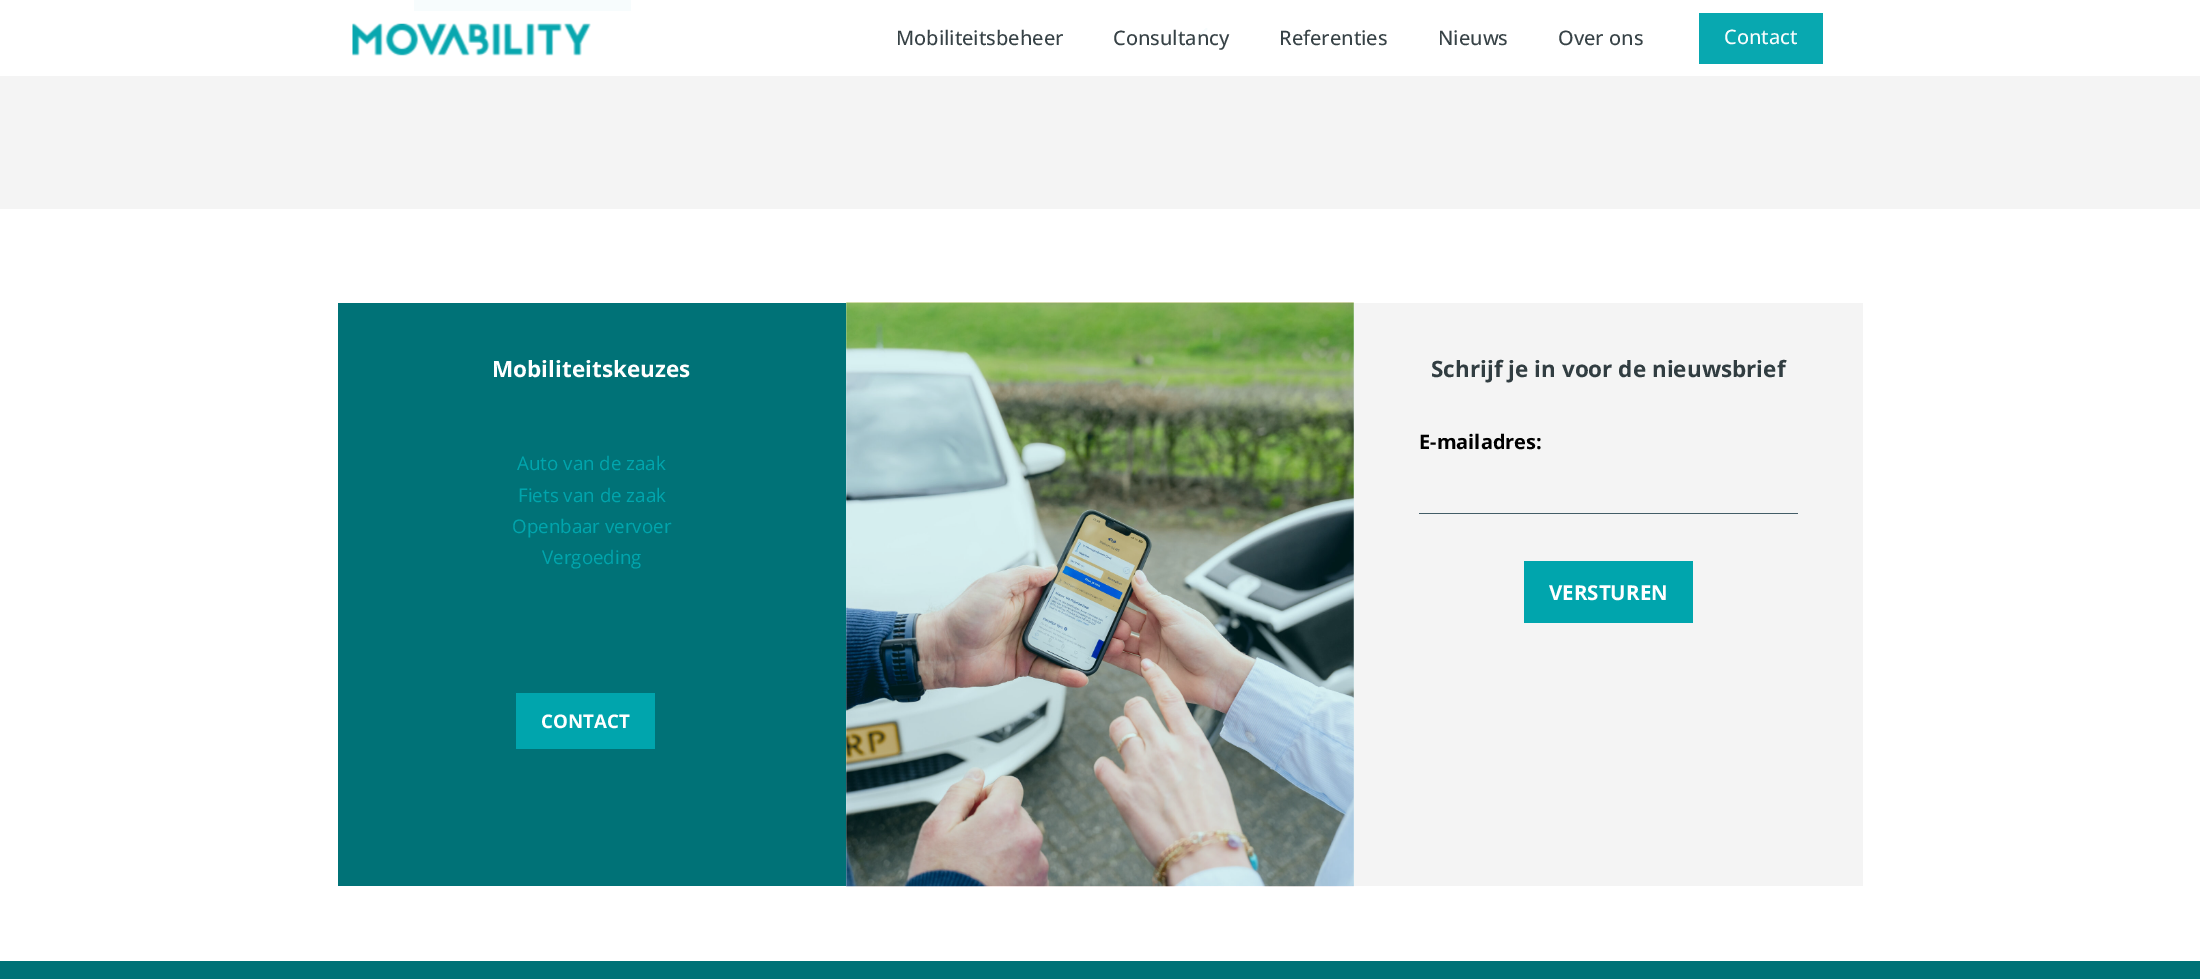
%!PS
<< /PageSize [2200 979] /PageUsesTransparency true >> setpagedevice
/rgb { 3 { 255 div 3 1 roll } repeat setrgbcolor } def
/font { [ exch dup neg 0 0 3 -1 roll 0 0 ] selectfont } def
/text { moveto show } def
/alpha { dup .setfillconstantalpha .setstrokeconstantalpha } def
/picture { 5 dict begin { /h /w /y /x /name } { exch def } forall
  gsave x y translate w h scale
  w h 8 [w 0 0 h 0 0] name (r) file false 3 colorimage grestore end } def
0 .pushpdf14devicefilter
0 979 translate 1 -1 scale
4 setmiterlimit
255 255 255 rgb
0 0 2200 979 rectfill
(img_01.rgb) 352 23 239 33 picture
0.97 alpha
0 165 173 rgb
1699 13 124 51 rectfill
1 alpha
244 244 244 rgb
0 76 2200 133 rectfill
247 252 253 rgb
414 0 217 11 rectfill
(img_02.rgb) 1176 28 32 22 picture
0 114 119 rgb
338 303 508 583 rectfill
0 165 173 rgb
516 693 139 56 rectfill
(img_03.rgb) 846 302 508 585 picture
244 244 244 rgb
1354 303 509 583 rectfill
67 93 103 rgb
1419 513 379 1 rectfill
0 165 173 rgb
1524 561 169 62 rectfill
0 114 119 rgb
0 961 2200 18 rectfill
/OpenSans-Medium 20 font
55 66 70 rgb
(Mobiliteitsbeheer) 896 45 text
(Consultancy) 1113 45 text
(Referenties) 1279 45 text
(Nieuws) 1438 45 text
(Over ons) 1558 45 text
248 252 253 rgb
(Contact) 1724 44 text
/OpenSans-Bold 22.5 font
255 255 255 rgb
(Mobiliteitskeuzes) 492 377 text
/OpenSans-Regular 18.75 font
0 165 173 rgb
(Auto van de zaak) 517 470 text
(Fiets van de zaak) 518 502 text
(Openbaar vervoer) 512 533 text
(Vergoeding) 542 564 text
/OpenSans-Bold 18.75 font
255 255 255 rgb
(CONTACT) 541 728 text
/OpenSans-Bold 22.5 font
49 61 65 rgb
(Schrijf je in voor de nieuwsbrief) 1431 377 text
/OpenSans-Bold 20 font
0 0 0 rgb
(E-mailadres:) 1419 449 text
/OpenSans-Bold 20.5 font
255 255 255 rgb
(VERSTUREN) 1549 600 text
.poppdf14devicefilter showpage
